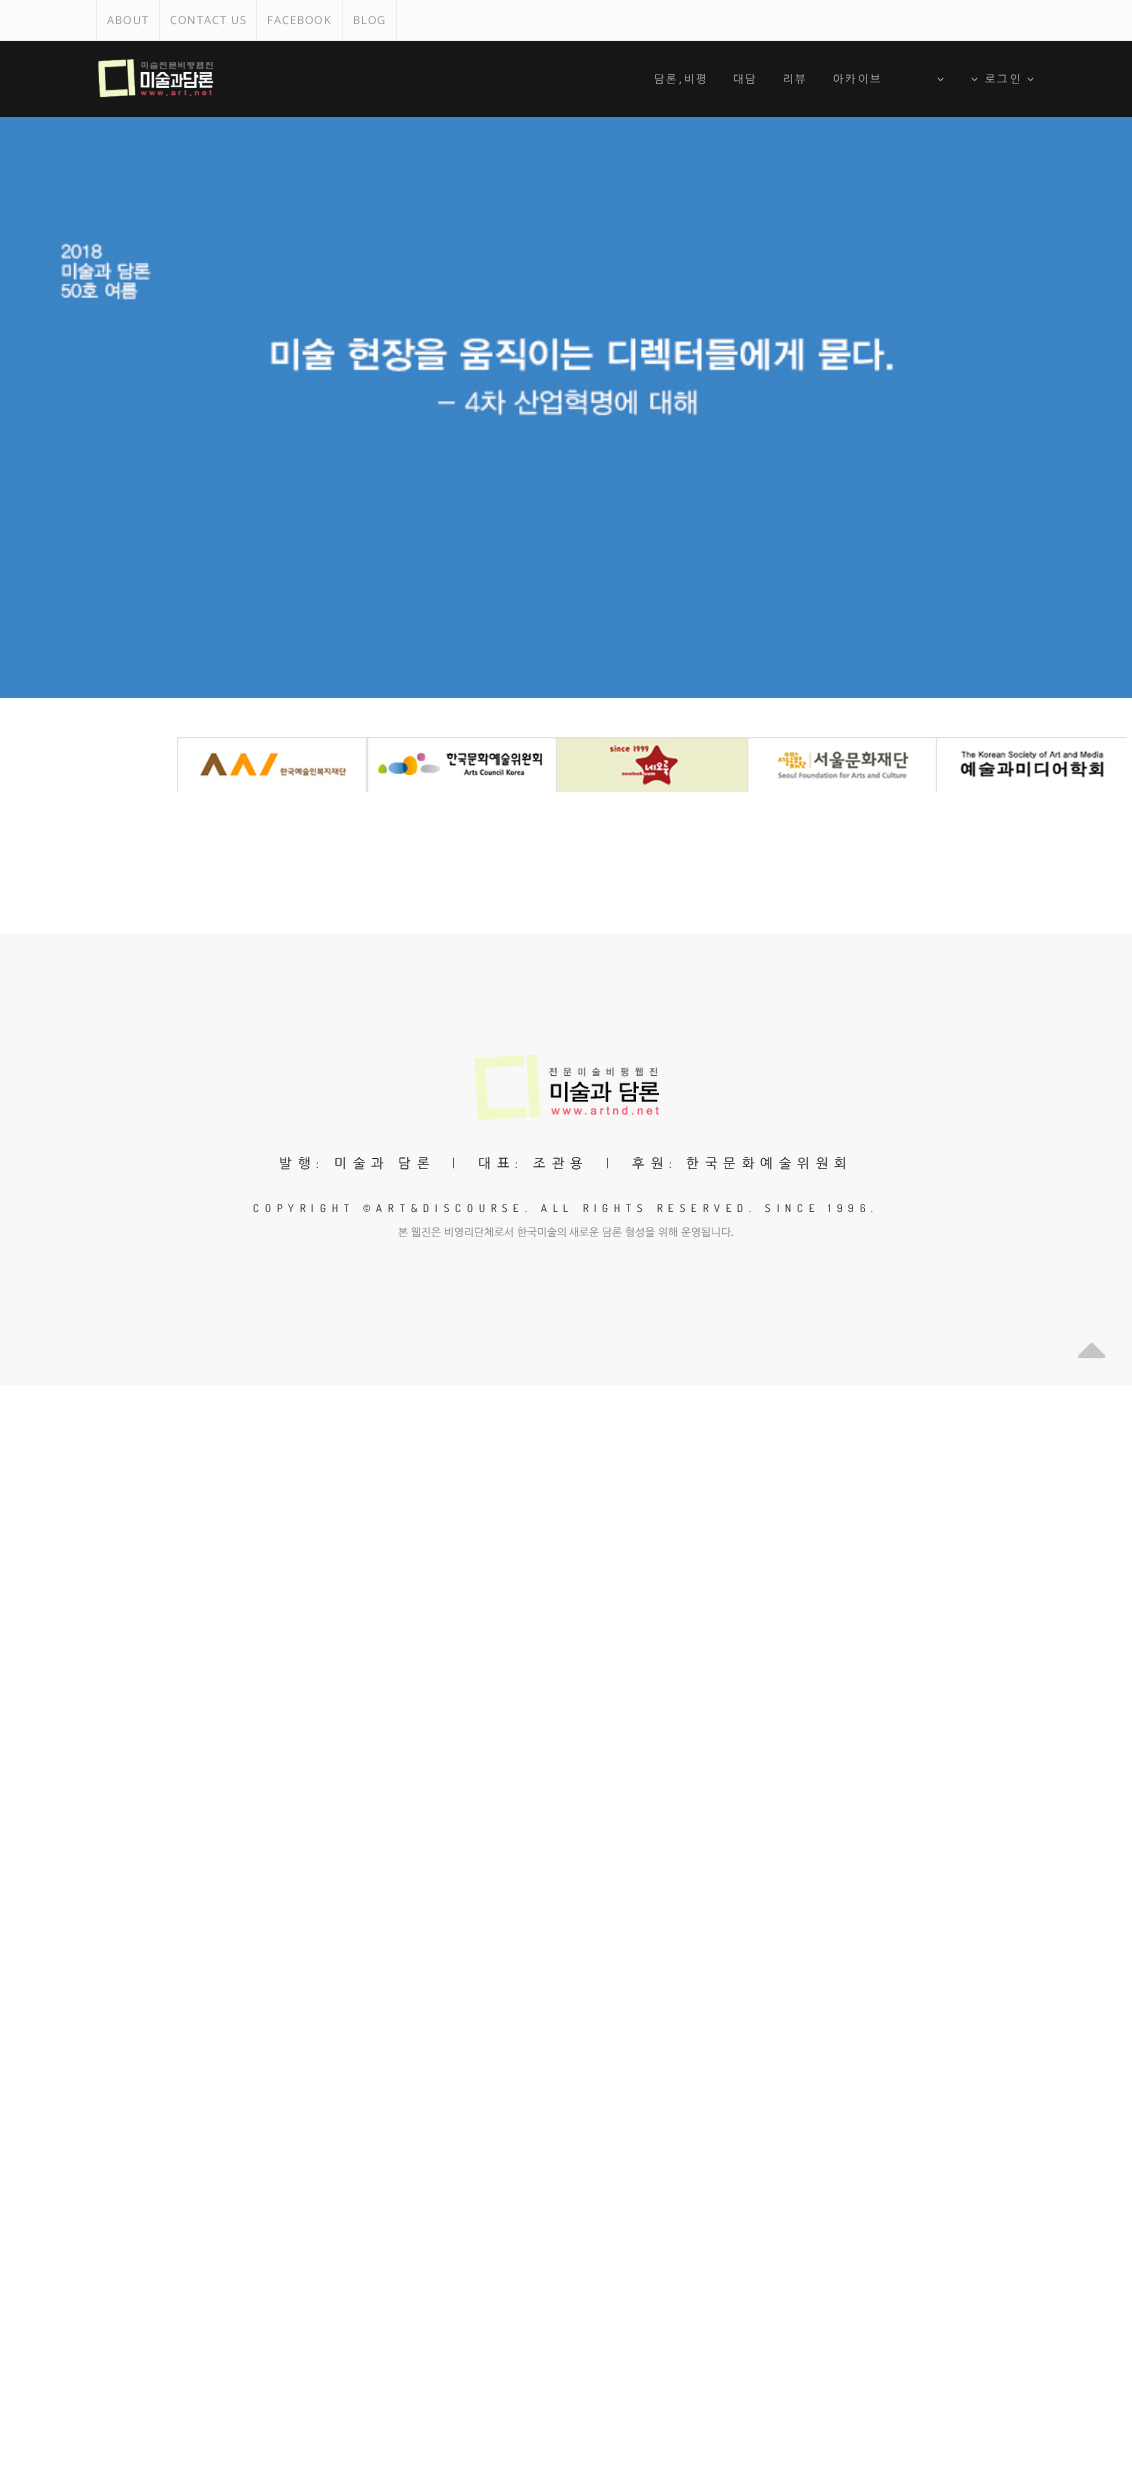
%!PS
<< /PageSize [1132 2472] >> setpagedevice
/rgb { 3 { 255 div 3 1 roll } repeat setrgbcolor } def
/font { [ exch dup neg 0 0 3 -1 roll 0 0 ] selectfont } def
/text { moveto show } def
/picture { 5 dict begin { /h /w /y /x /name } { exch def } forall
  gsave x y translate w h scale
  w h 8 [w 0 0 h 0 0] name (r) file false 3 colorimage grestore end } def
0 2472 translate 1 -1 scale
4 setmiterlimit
255 255 255 rgb
0 0 1132 2472 rectfill
251 251 251 rgb
0 0 1132 40 rectfill
238 238 238 rgb
0 40 1132 1 rectfill
96 0 1 40 rectfill
159 0 1 40 rectfill
256 0 1 40 rectfill
396 0 1 40 rectfill
342 0 1 40 rectfill
22 22 22 rgb
0 41 1132 75 rectfill
(img_01.rgb) 98 59 116 39 picture
(img_02.rgb) 937 77 7 5 picture
(img_02.rgb) 971 77 7 5 picture
(img_02.rgb) 1027 77 7 5 picture
17 17 17 rgb
0 116 1132 1 rectfill
(img_03.rgb) 0 117 1132 581 picture
(img_04.rgb) 177 737 190 55 picture
(img_05.rgb) 367 737 190 55 picture
(img_06.rgb) 557 737 190 55 picture
(img_07.rgb) 747 737 190 55 picture
(img_08.rgb) 937 737 190 41 picture
248 248 248 rgb
0 934 1132 451 rectfill
(img_09.rgb) 475 1054 184 66 picture
(img_10.rgb) 1078 1342 28 17 picture
/OpenSans-Regular 11 font
153 153 153 rgb
107 24 moveto 1 0 (ABOUT) ashow
170 24 moveto 1 0 (CONTACT US) ashow
267 24 moveto 1 0 (FACEBOOK) ashow
353 24 moveto 1 0 (BLOG) ashow
/NanumGothic-Regular 11 font
185 185 185 rgb
654 83 moveto 2 0 (담론 비평) ashow
/OpenSans-Regular 11 font
679 83 moveto 2 0 (,) ashow
/NanumGothic-Regular 11 font
733 83 moveto 2 0 (대담) ashow
783 83 moveto 2 0 (리뷰) ashow
833 83 moveto 2 0 (아카이브) ashow
985 83 moveto 2 0 (로그인) ashow
/NanumGothic-Regular 13.3 font
25 25 25 rgb
279 1168 moveto 6 0 (발행) ashow
/Dosis-Regular 13.3 font
316 1168 moveto 6 0 (:) ashow
/NanumGothic-Regular 13.3 font
334 1168 moveto 6 0 (미술과) ashow
398 1168 moveto 6 0 (담론) ashow
/Dosis-Regular 13.3 font
452 1168 moveto 6 0 (|) ashow
/NanumGothic-Regular 13.3 font
478 1168 moveto 6 0 (대표) ashow
/Dosis-Regular 13.3 font
515 1168 moveto 6 0 (:) ashow
/NanumGothic-Regular 13.3 font
533 1168 moveto 6 0 (조관용) ashow
/Dosis-Regular 13.3 font
606 1168 moveto 6 0 (|) ashow
/NanumGothic-Regular 13.3 font
632 1168 moveto 6 0 (후원) ashow
/Dosis-Regular 13.3 font
669 1168 moveto 6 0 (:) ashow
/NanumGothic-Regular 13.3 font
686 1168 moveto 6 0 (한국문화예술위원회) ashow
/Dosis-Regular 10.67 font
253 1212 moveto 6 0 (COPYRIGHT ©ART&DISCOURSE. ALL RIGHTS RESERVED. SINCE 1996.) ashow
/NanumGothic-Regular 10.67 font
125 125 125 rgb
398 1236 moveto -0.25 0 32 (본 웹진은 비영리단체로서 한국미술의 새로운 담론 형성을 위해 운영됩니다) widthshow
/OpenSans-Regular 10.67 font
(.) 731 1236 text
showpage
